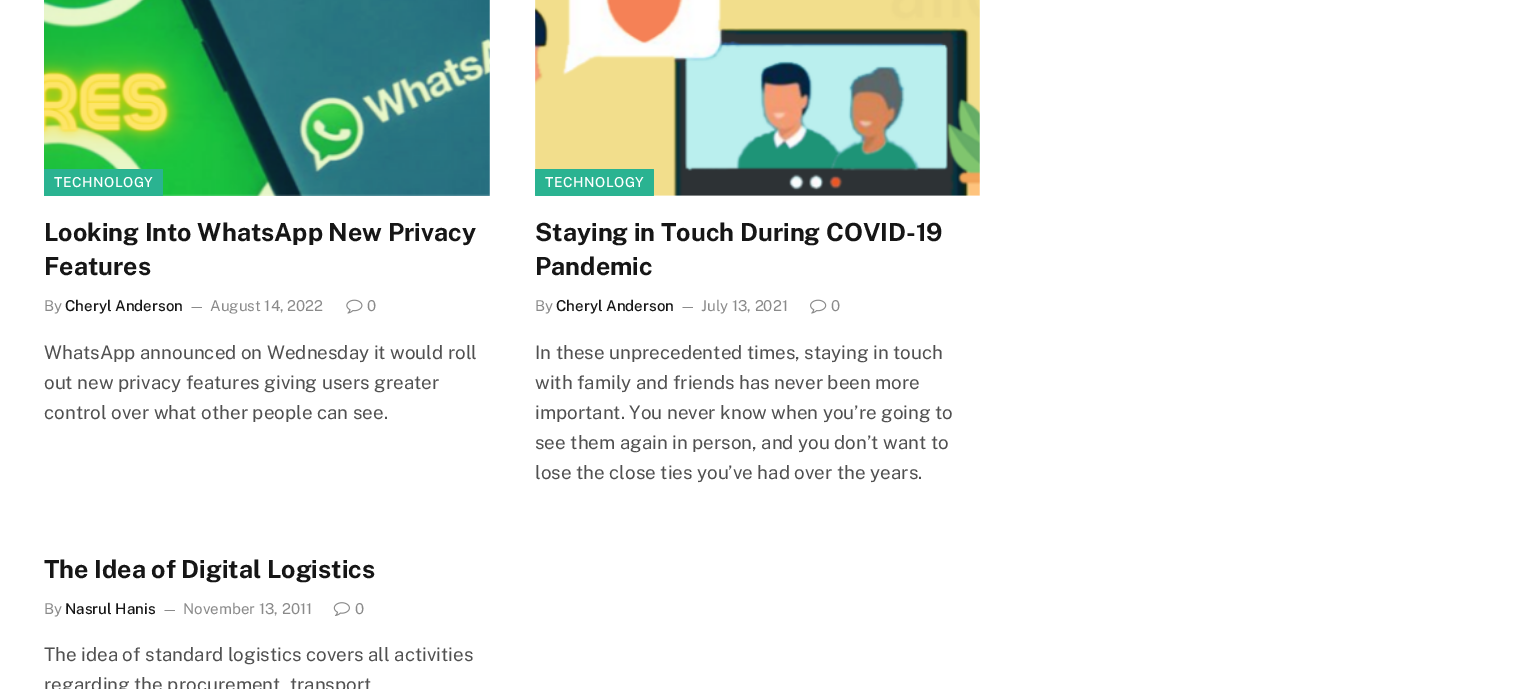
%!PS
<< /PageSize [1515 689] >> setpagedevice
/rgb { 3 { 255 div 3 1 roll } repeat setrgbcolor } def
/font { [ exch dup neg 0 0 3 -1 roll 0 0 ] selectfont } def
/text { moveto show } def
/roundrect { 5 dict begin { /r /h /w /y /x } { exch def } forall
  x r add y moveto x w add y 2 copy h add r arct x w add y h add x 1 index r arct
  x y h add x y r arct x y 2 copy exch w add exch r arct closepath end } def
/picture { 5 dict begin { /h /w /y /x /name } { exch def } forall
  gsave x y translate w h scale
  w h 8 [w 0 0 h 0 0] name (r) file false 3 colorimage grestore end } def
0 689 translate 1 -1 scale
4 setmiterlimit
255 255 255 rgb
0 0 1515 689 rectfill
(img_01.rgb) 44 0 446 196 picture
42 179 145 rgb
44 169 119 27 1 roundrect fill
(img_02.rgb) 346 299 17 15 picture
(img_03.rgb) 535 0 445 196 picture
535 169 119 27 1 roundrect fill
(img_04.rgb) 810 299 17 15 picture
(img_05.rgb) 333 602 17 14 picture
/PublicSans-Medium 13.75 font
255 255 255 rgb
54 187 moveto 0.5 0 (TECHNOLOGY) ashow
/PublicSans-Bold 25 font
22 22 22 rgb
(Looking Into WhatsApp New Privacy) 44 241 text
(Features) 44 275 text
/PublicSans-Regular 15 font
138 138 138 rgb
(By) 44 311 text
/PublicSans-Medium 15 font
22 22 22 rgb
(Cheryl Anderson) 65 311 text
/PublicSans-Regular 14 font
138 138 138 rgb
(—) 189 311 text
/PublicSans-Regular 15 font
(August 14, 2022) 210 311 text
(0) 367 311 text
/PublicSans-Regular 18.75 font
80 80 80 rgb
(WhatsApp announced on Wednesday it would roll) 44 359 text
(out new privacy features giving users greater) 44 389 text
(control over what other people can see.) 44 419 text
/PublicSans-Medium 13.75 font
255 255 255 rgb
545 187 moveto 0.5 0 (TECHNOLOGY) ashow
/PublicSans-Bold 25 font
22 22 22 rgb
(Staying in Touch During COVID-19) 535 241 text
(Pandemic) 535 275 text
/PublicSans-Regular 15 font
138 138 138 rgb
(By) 535 311 text
/PublicSans-Medium 15 font
22 22 22 rgb
(Cheryl Anderson) 556 311 text
/PublicSans-Regular 14 font
138 138 138 rgb
(—) 680 311 text
/PublicSans-Regular 15 font
(July 13, 2021) 701 311 text
(0) 831 311 text
/PublicSans-Regular 18.75 font
80 80 80 rgb
(In these unprecedented times, staying in touch) 535 359 text
(with family and friends has never been more) 535 389 text
(important. You never know when you’re going to) 535 419 text
(see them again in person, and you don’t want to) 535 449 text
(lose the close ties you’ve had over the years.) 535 479 text
/PublicSans-Bold 25 font
22 22 22 rgb
(The Idea of Digital Logistics) 44 578 text
/PublicSans-Regular 15 font
138 138 138 rgb
(By) 44 614 text
/PublicSans-Medium 15 font
22 22 22 rgb
(Nasrul Hanis) 65 614 text
/PublicSans-Regular 14 font
138 138 138 rgb
(—) 162 614 text
/PublicSans-Regular 15 font
(November 13, 2011) 183 614 text
(0) 355 614 text
/PublicSans-Regular 18.75 font
80 80 80 rgb
(The idea of standard logistics covers all activities) 44 661 text
(regarding the procurement, transport) 44 691 text
showpage
